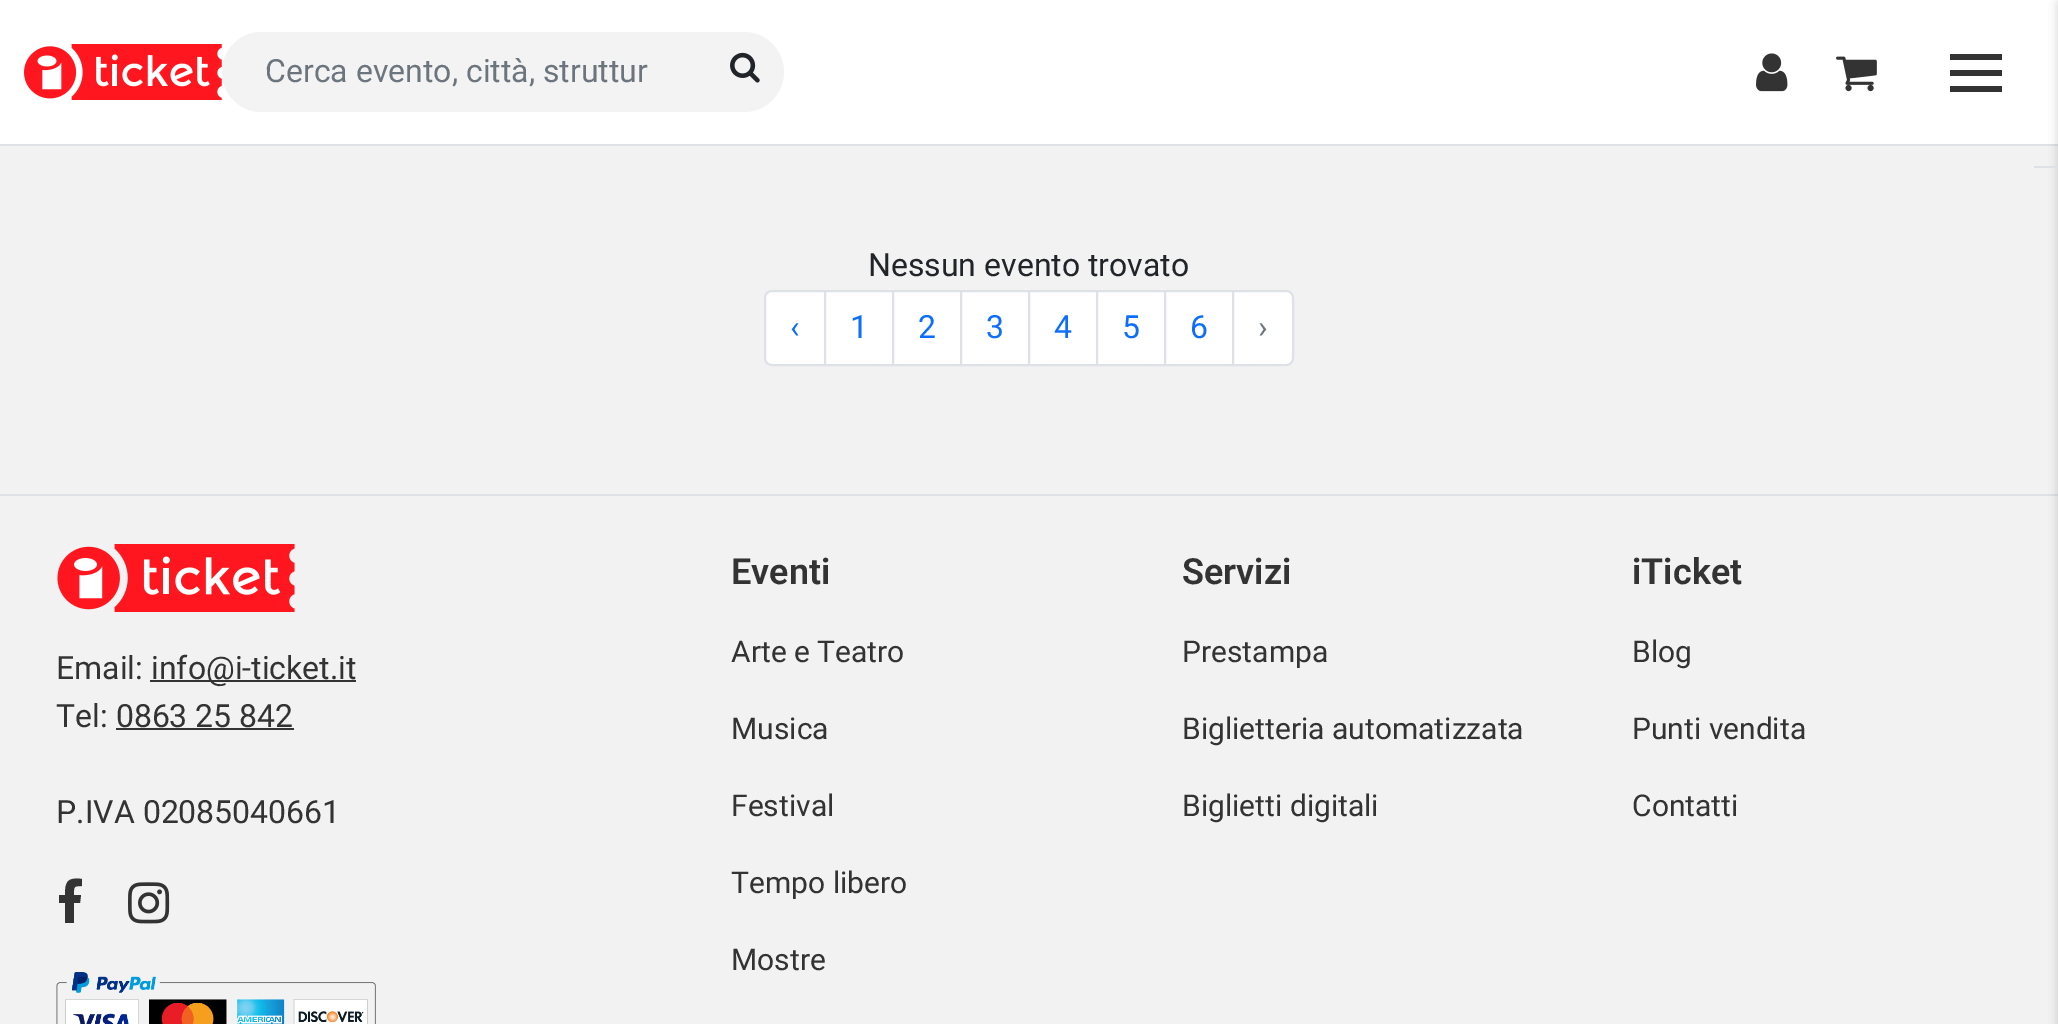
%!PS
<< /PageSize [2058 1024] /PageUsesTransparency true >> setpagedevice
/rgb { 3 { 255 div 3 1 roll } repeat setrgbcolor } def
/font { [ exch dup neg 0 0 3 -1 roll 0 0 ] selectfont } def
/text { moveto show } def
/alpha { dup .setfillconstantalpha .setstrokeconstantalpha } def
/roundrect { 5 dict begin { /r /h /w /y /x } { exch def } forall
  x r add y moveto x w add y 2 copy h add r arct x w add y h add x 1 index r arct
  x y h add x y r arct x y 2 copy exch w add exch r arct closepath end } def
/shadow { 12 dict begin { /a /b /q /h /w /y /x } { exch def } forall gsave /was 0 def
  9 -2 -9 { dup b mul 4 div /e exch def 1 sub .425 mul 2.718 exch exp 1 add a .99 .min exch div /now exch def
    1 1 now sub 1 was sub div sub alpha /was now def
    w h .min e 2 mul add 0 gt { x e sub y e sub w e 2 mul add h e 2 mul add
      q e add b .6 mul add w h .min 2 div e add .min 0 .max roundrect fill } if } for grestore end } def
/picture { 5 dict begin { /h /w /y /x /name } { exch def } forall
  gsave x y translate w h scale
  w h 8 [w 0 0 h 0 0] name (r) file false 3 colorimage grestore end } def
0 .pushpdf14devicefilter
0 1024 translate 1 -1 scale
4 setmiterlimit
242 242 242 rgb
0 0 2058 1024 rectfill
255 255 255 rgb
0 0 2058 144 rectfill
222 226 230 rgb
0 144 2058 2 rectfill
(img_01.rgb) 24 44 198 56 picture
243 243 243 rgb
222 32 562 80 40 roundrect fill
262 32 moveto 446 0 rlineto 0 80 rlineto -446 0 rlineto -22 0 -40 -18 -40 -40 rcurveto 0 -22 18 -40 40 -40 rcurveto closepath fill
(img_02.rgb) 730 52 30 31 picture
(img_03.rgb) 1756 53 32 39 picture
(img_04.rgb) 1836 56 41 36 picture
51 51 51 rgb
1950 70 52 6 rectfill
1950 54 52 6 rectfill
1950 86 52 6 rectfill
222 226 230 rgb
0 494 2058 2 rectfill
0 0 0 rgb
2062 4 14 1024 0 6 0.4 shadow
222 226 230 rgb
2034 166 24 2 rectfill
255 255 255 rgb
772 291 moveto 53 0 rlineto 0 74 rlineto -53 0 rlineto -4 0 -7 -3 -7 -7 rcurveto 0 -60 rlineto 0 -4 3 -7 7 -7 rcurveto closepath gsave fill grestore
222 226 230 rgb
2 setlinewidth
stroke
255 255 255 rgb
825 291 moveto 68 0 rlineto 0 74 rlineto -68 0 rlineto closepath gsave fill grestore
222 226 230 rgb
stroke
255 255 255 rgb
893 291 moveto 68 0 rlineto 0 74 rlineto -68 0 rlineto closepath gsave fill grestore
222 226 230 rgb
stroke
255 255 255 rgb
961 291 moveto 68 0 rlineto 0 74 rlineto -68 0 rlineto closepath gsave fill grestore
222 226 230 rgb
stroke
255 255 255 rgb
1029 291 moveto 68 0 rlineto 0 74 rlineto -68 0 rlineto closepath gsave fill grestore
222 226 230 rgb
stroke
255 255 255 rgb
1097 291 moveto 68 0 rlineto 0 74 rlineto -68 0 rlineto closepath gsave fill grestore
222 226 230 rgb
stroke
255 255 255 rgb
1165 291 moveto 68 0 rlineto 0 74 rlineto -68 0 rlineto closepath gsave fill grestore
222 226 230 rgb
stroke
255 255 255 rgb
1233 291 moveto 53 0 rlineto 4 0 7 3 7 7 rcurveto 0 60 rlineto 0 4 -3 7 -7 7 rcurveto -53 0 rlineto closepath gsave fill grestore
222 226 230 rgb
stroke
(img_05.rgb) 57 544 238 68 picture
51 51 51 rgb
150 680 206 2 rectfill
116 728 178 2 rectfill
82 879 moveto 0 7 rlineto -9 0 -8 1 -8 9 rcurveto 7 0 rlineto -1 8 rlineto -6 0 rlineto 0 20 rlineto -9 0 rlineto 0 -20 rlineto -6 0 rlineto 0 -8 rlineto 6 0 rlineto 0 -13 2 -18 17 -16 rcurveto closepath fill
(img_06.rgb) 128 882 42 42 picture
(img_07.rgb) 56 972 320 52 picture
/Roboto-Regular 32 font
108 117 125 rgb
(Cerca evento, città, struttur) 265 82 text
33 37 41 rgb
(Nessun evento trovato) 868 276 text
13 110 253 rgb
(‹) 790 338 text
(1) 850 338 text
(2) 918 338 text
(3) 986 338 text
(4) 1054 338 text
(5) 1122 338 text
(6) 1190 338 text
108 117 125 rgb
(›) 1258 338 text
51 51 51 rgb
(Email:) 56 679 text
(info@i-ticket.it) 151 679 text
(Tel: 0863 25 842) 56 727 text
(P.IVA 02085040661) 56 823 text
/Roboto-SemiBold 36 font
(Eventi) 731 584 text
/Roboto-Regular 30 font
(Arte e Teatro) 731 662 text
(Musica) 731 739 text
(Festival) 731 816 text
(Tempo libero) 731 893 text
(Mostre) 731 970 text
/Roboto-SemiBold 36 font
(Servizi) 1182 584 text
/Roboto-Regular 30 font
(Prestampa) 1182 662 text
(Biglietteria automatizzata) 1182 739 text
(Biglietti digitali) 1182 816 text
/Roboto-SemiBold 36 font
(iTicket) 1632 584 text
/Roboto-Regular 30 font
(Blog) 1632 662 text
(Punti vendita) 1632 739 text
(Contatti) 1632 816 text
.poppdf14devicefilter showpage
